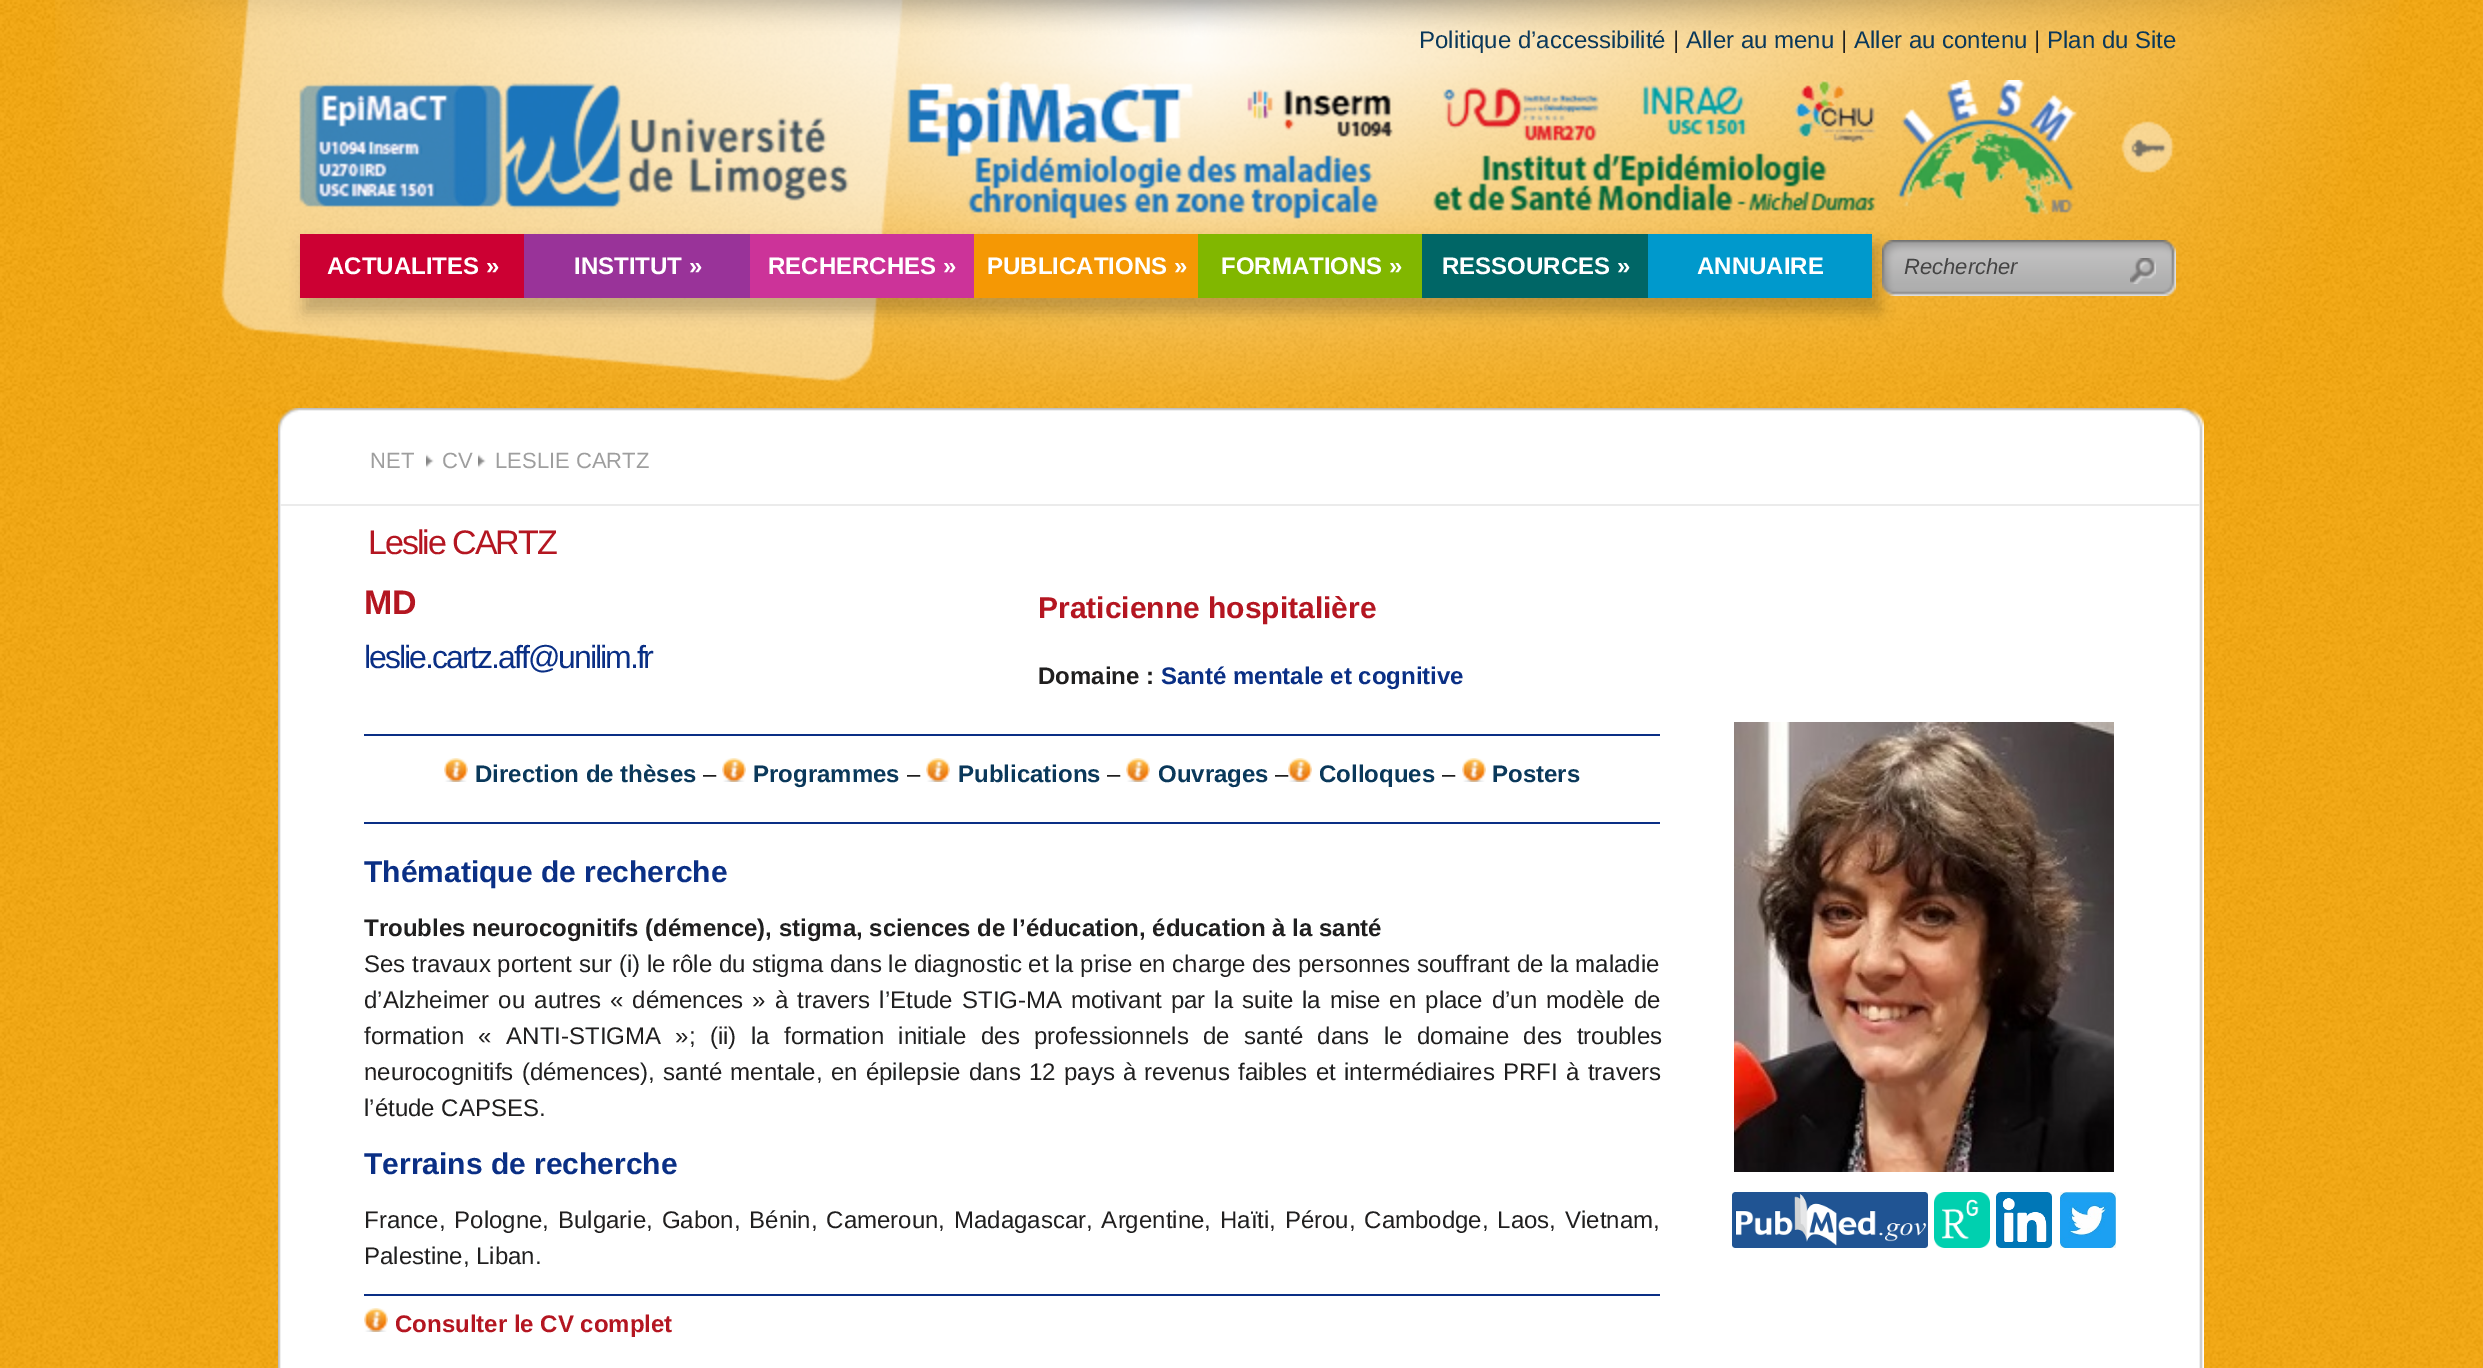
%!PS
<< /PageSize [2483 1368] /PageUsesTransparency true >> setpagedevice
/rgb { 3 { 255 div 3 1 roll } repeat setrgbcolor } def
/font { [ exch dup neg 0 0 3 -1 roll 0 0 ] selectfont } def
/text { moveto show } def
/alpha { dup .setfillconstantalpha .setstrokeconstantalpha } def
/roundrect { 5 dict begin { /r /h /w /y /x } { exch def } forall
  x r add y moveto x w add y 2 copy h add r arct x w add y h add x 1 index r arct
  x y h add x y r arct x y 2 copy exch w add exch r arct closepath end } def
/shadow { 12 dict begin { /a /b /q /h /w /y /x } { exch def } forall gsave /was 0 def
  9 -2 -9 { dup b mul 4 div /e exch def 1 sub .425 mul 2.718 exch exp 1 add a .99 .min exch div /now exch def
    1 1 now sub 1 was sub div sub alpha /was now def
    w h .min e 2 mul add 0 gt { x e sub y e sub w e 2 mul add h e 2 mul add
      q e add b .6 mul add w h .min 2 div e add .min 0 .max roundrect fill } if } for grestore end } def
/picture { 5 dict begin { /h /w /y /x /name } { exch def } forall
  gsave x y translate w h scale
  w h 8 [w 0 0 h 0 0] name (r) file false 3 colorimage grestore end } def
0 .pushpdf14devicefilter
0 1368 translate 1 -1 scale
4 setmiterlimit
244 166 11 rgb
0 0 2483 1368 rectfill
(img_01.rgb) 0 0 2483 1368 picture
(img_02.rgb) 55 0 2344 408 picture
(img_03.rgb) 299 80 1778 139 picture
(img_04.rgb) 2121 120 54 53 picture
0 0 0 rgb
304 244 1576 68 0 7 0.2 shadow
204 0 51 rgb
300 234 224 64 rectfill
153 51 153 rgb
524 234 226 64 rectfill
204 51 153 rgb
750 234 224 64 rectfill
245 152 4 rgb
974 234 224 64 rectfill
129 183 0 rgb
1198 234 224 64 rectfill
0 102 102 rgb
1422 234 226 64 rectfill
0 153 204 rgb
1648 234 224 64 rectfill
(img_05.rgb) 1882 240 294 56 picture
(img_06.rgb) 2130 258 26 26 picture
(img_07.rgb) 278 408 1926 32 picture
(img_08.rgb) 278 440 1926 928 picture
235 235 235 rgb
280 504 1920 2 rectfill
(img_09.rgb) 426 454 8 14 picture
(img_09.rgb) 478 454 8 14 picture
10 47 133 rgb
364 734 1296 2 rectfill
(img_10.rgb) 444 758 24 24 picture
(img_10.rgb) 722 758 24 24 picture
(img_10.rgb) 926 758 24 24 picture
(img_10.rgb) 1126 758 24 24 picture
(img_10.rgb) 1462 758 24 24 picture
364 822 1296 2 rectfill
364 1294 1296 2 rectfill
(img_10.rgb) 364 1308 24 24 picture
(img_12.rgb) 1734 722 380 450 picture
(img_13.rgb) 1732 1192 196 56 picture
(img_14.rgb) 1934 1192 56 56 picture
(img_15.rgb) 1996 1192 56 56 picture
(img_16.rgb) 2060 1192 56 56 picture
/LiberationSans-Regular 24 font
10 56 90 rgb
(Politique d’accessibilité) 1419 48 text
32 31 31 rgb
(|) 1673 48 text
10 56 90 rgb
(Aller au menu) 1686 48 text
32 31 31 rgb
(|) 1841 48 text
10 56 90 rgb
(Aller au contenu) 1854 48 text
32 31 31 rgb
(|) 2034 48 text
10 56 90 rgb
(Plan du Site) 2047 48 text
/LiberationSans-Bold 24 font
255 255 255 rgb
(ACTUALITES ») 327 274 text
(INSTITUT ») 574 274 text
(RECHERCHES ») 768 274 text
(PUBLICATIONS ») 987 274 text
(FORMATIONS ») 1221 274 text
(RESSOURCES ») 1442 274 text
(ANNUAIRE) 1697 274 text
/LiberationSans-Italic 22 font
68 68 68 rgb
(Rechercher) 1904 274 text
/LiberationSans-Regular 22 font
158 158 158 rgb
(NET) 370 468 text
(CV) 442 468 text
(LESLIE CARTZ) 495 468 text
/LiberationSans-Regular 34 font
180 22 33 rgb
368 554 moveto -2 0 (Leslie CARTZ) ashow
/LiberationSans-Bold 34 font
(MD) 364 614 text
/LiberationSans-Regular 32 font
10 47 133 rgb
364 668 moveto -2 0 (leslie.cartz.aff@unilim.fr) ashow
/LiberationSans-Bold 30 font
180 22 33 rgb
(Praticienne hospitalière) 1038 618 text
/LiberationSans-Bold 24 font
32 31 31 rgb
(Domaine :) 1038 684 text
10 47 133 rgb
(Santé mentale et cognitive) 1161 684 text
10 56 90 rgb
(Direction de thèses) 475 782 text
/LiberationSans-Regular 24 font
32 31 31 rgb
(–) 703 782 text
/LiberationSans-Bold 24 font
10 56 90 rgb
(Programmes) 753 782 text
/LiberationSans-Regular 24 font
32 31 31 rgb
(–) 907 782 text
/LiberationSans-Bold 24 font
10 56 90 rgb
(Publications) 958 782 text
/LiberationSans-Regular 24 font
32 31 31 rgb
(–) 1107 782 text
/LiberationSans-Bold 24 font
10 56 90 rgb
(Ouvrages) 1158 782 text
/LiberationSans-Regular 24 font
32 31 31 rgb
(–) 1275 782 text
(img_11.rgb) 1288 758 24 24 picture
/LiberationSans-Bold 24 font
10 56 90 rgb
(Colloques) 1319 782 text
/LiberationSans-Regular 24 font
32 31 31 rgb
(–) 1442 782 text
/LiberationSans-Bold 24 font
10 56 90 rgb
(Posters) 1492 782 text
/LiberationSans-Bold 30 font
10 47 133 rgb
(Thématique de recherche) 364 882 text
/LiberationSans-Bold 24 font
32 31 31 rgb
(Troubles neurocognitifs \(démence\), stigma, sciences de l’éducation, éducation à la santé) 364 936 text
/LiberationSans-Regular 24 font
(Ses travaux portent sur \(i\) le rôle du stigma dans le diagnostic et la prise en charge des personnes souffrant de la maladie) 364 972 text
364 1008 moveto 2.4 0 32 (d’Alzheimer ou autres « démences » à travers l’Etude STIG-MA motivant par la suite la mise en place d’un modèle de) widthshow
364 1044 moveto 7.75 0 32 (formation « ANTI-STIGMA »; \(ii\) la formation initiale des professionnels de santé dans le domaine des troubles) widthshow
364 1080 moveto 1.6 0 32 (neurocognitifs \(démences\), santé mentale, en épilepsie dans 12 pays à revenus faibles et intermédiaires PRFI à travers) widthshow
(l’étude CAPSES.) 364 1116 text
/LiberationSans-Bold 30 font
10 47 133 rgb
(Terrains de recherche) 364 1174 text
/LiberationSans-Regular 24 font
32 31 31 rgb
364 1228 moveto 2.25 0 32 (France, Pologne, Bulgarie, Gabon, Bénin, Cameroun, Madagascar, Argentine, Haïti, Pérou, Cambodge, Laos, Vietnam,) widthshow
(Palestine, Liban.) 364 1264 text
/LiberationSans-Bold 24 font
180 22 33 rgb
(Consulter le CV complet) 395 1332 text
.poppdf14devicefilter showpage
